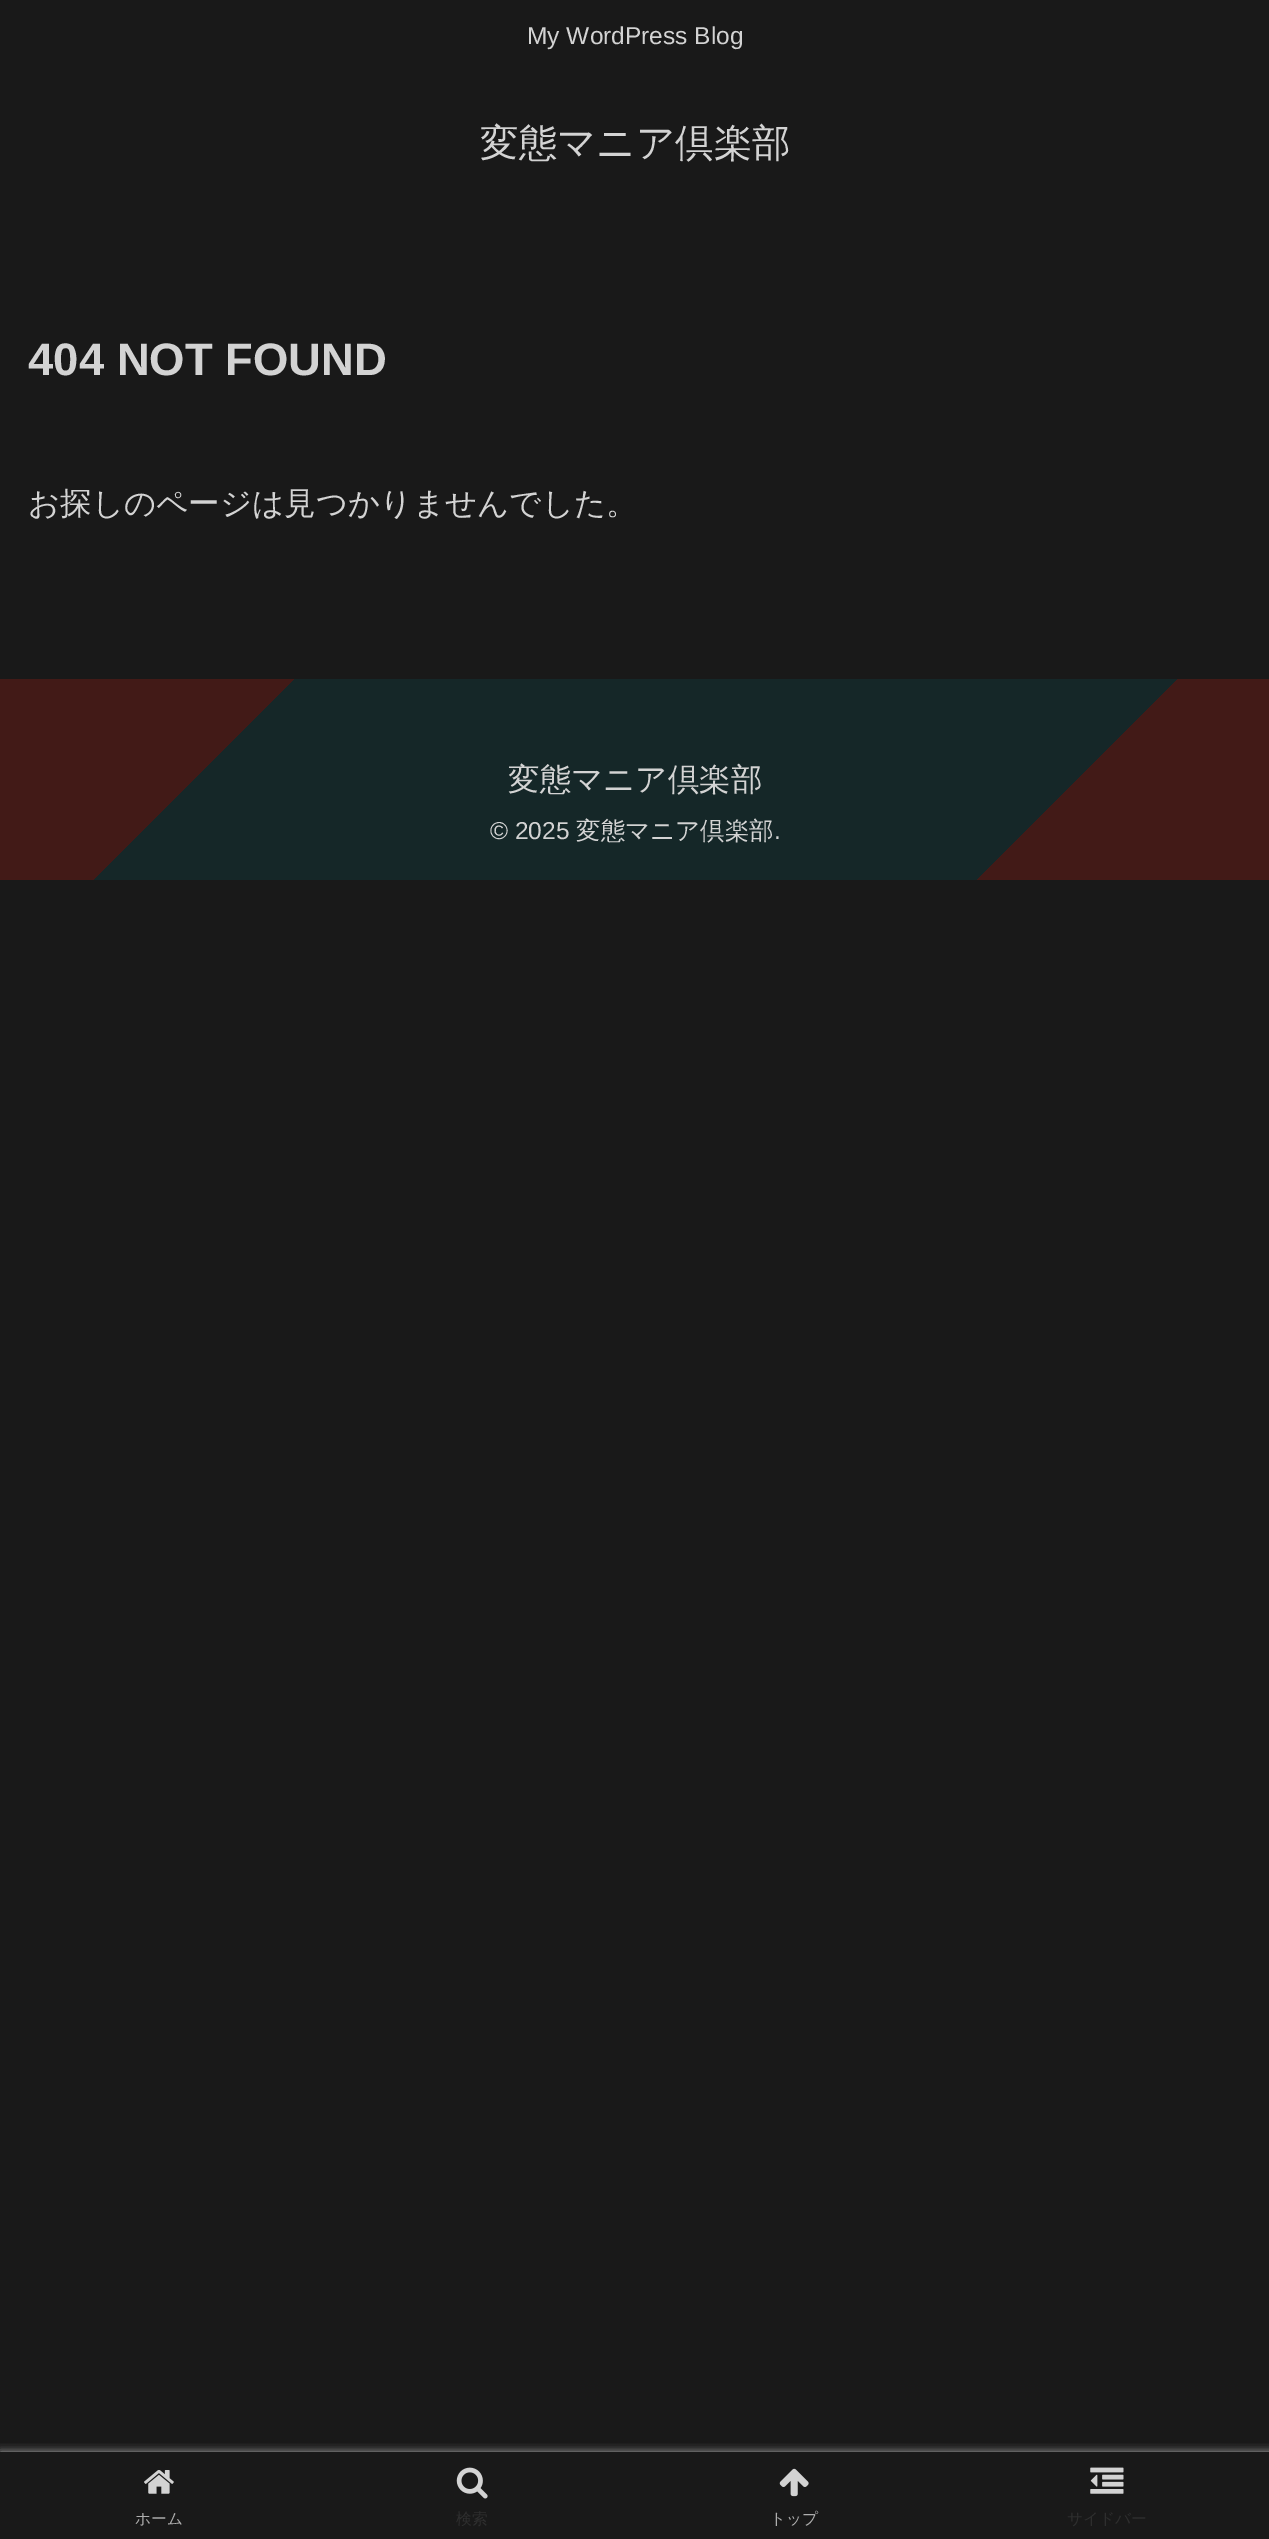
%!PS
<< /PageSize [1269 2539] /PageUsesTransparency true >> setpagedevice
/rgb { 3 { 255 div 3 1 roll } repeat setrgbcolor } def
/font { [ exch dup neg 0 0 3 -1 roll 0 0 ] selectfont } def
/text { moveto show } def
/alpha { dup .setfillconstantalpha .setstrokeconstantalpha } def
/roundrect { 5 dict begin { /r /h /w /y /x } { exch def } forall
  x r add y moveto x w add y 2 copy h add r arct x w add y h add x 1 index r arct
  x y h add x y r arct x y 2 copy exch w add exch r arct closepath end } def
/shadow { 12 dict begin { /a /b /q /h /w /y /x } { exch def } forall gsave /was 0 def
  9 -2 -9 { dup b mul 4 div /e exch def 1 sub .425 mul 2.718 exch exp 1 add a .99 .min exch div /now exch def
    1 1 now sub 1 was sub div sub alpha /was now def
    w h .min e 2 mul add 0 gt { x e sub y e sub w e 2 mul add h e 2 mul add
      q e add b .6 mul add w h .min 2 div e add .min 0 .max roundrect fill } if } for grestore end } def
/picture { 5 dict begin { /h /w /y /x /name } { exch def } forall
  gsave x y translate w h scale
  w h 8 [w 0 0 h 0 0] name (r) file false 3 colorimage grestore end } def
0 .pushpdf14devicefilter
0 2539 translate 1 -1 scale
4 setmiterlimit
25 25 25 rgb
0 0 1269 2539 rectfill
gsave 0 679 moveto 1269 0 rlineto 0 201 rlineto -1269 0 rlineto closepath clip newpath
<< /ShadingType 2 /ColorSpace /DeviceRGB /Coords [267 412 1003 1148] /Extend [true true] /Function << /FunctionType 3 /Domain [0 1] /Functions [<< /FunctionType 2 /Domain [0 1] /C0 [0.259 0.102 0.09] /C1 [0.259 0.102 0.09] /N 1 >> << /FunctionType 2 /Domain [0 1] /C0 [0.082 0.153 0.157] /C1 [0.082 0.153 0.157] /N 1 >> << /FunctionType 2 /Domain [0 1] /C0 [0.259 0.102 0.09] /C1 [0.259 0.102 0.09] /N 1 >>] /Bounds [0.2 0.8] /Encode [0 1 0 1 0 1] >> >> shfill grestore
gsave
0 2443 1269 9 rectclip
169 169 169 rgb
0 2452 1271 87 0 4.5 1 shadow
grestore
(img_01.rgb) 144 2470 30 24 picture
(img_02.rgb) 456 2467 32 32 picture
(img_03.rgb) 779 2468 30 29 picture
(img_04.rgb) 1090 2467 34 27 picture
/LiberationSans-Regular 24.5 font
211 211 211 rgb
(My WordPress Blog) 527 44 text
/WenQuanYiZenHei-Medium 38.5 font
(変態マニア倶楽部) 480 156 text
/LiberationSans-Bold 45.5 font
(404 NOT FOUND) 28 375 text
/WenQuanYiZenHei-Medium 31.5 font
(お探しのページは見つかりませんでした。) 28 514 text
(変態マニア倶楽部) 508 790 text
/LiberationSans-Regular 24.5 font
(© 2025) 490 839 text
/WenQuanYiZenHei-Medium 24.5 font
(変態マニア倶楽部) 576 839 text
/LiberationSans-Regular 24.5 font
(.) 774 839 text
/WenQuanYiZenHei-Medium 15.75 font
174 174 174 rgb
(ホーム) 135 2524 text
46 46 46 rgb
(検索) 456 2524 text
174 174 174 rgb
(トップ) 770 2524 text
46 46 46 rgb
(サイドバー) 1067 2524 text
.poppdf14devicefilter showpage
